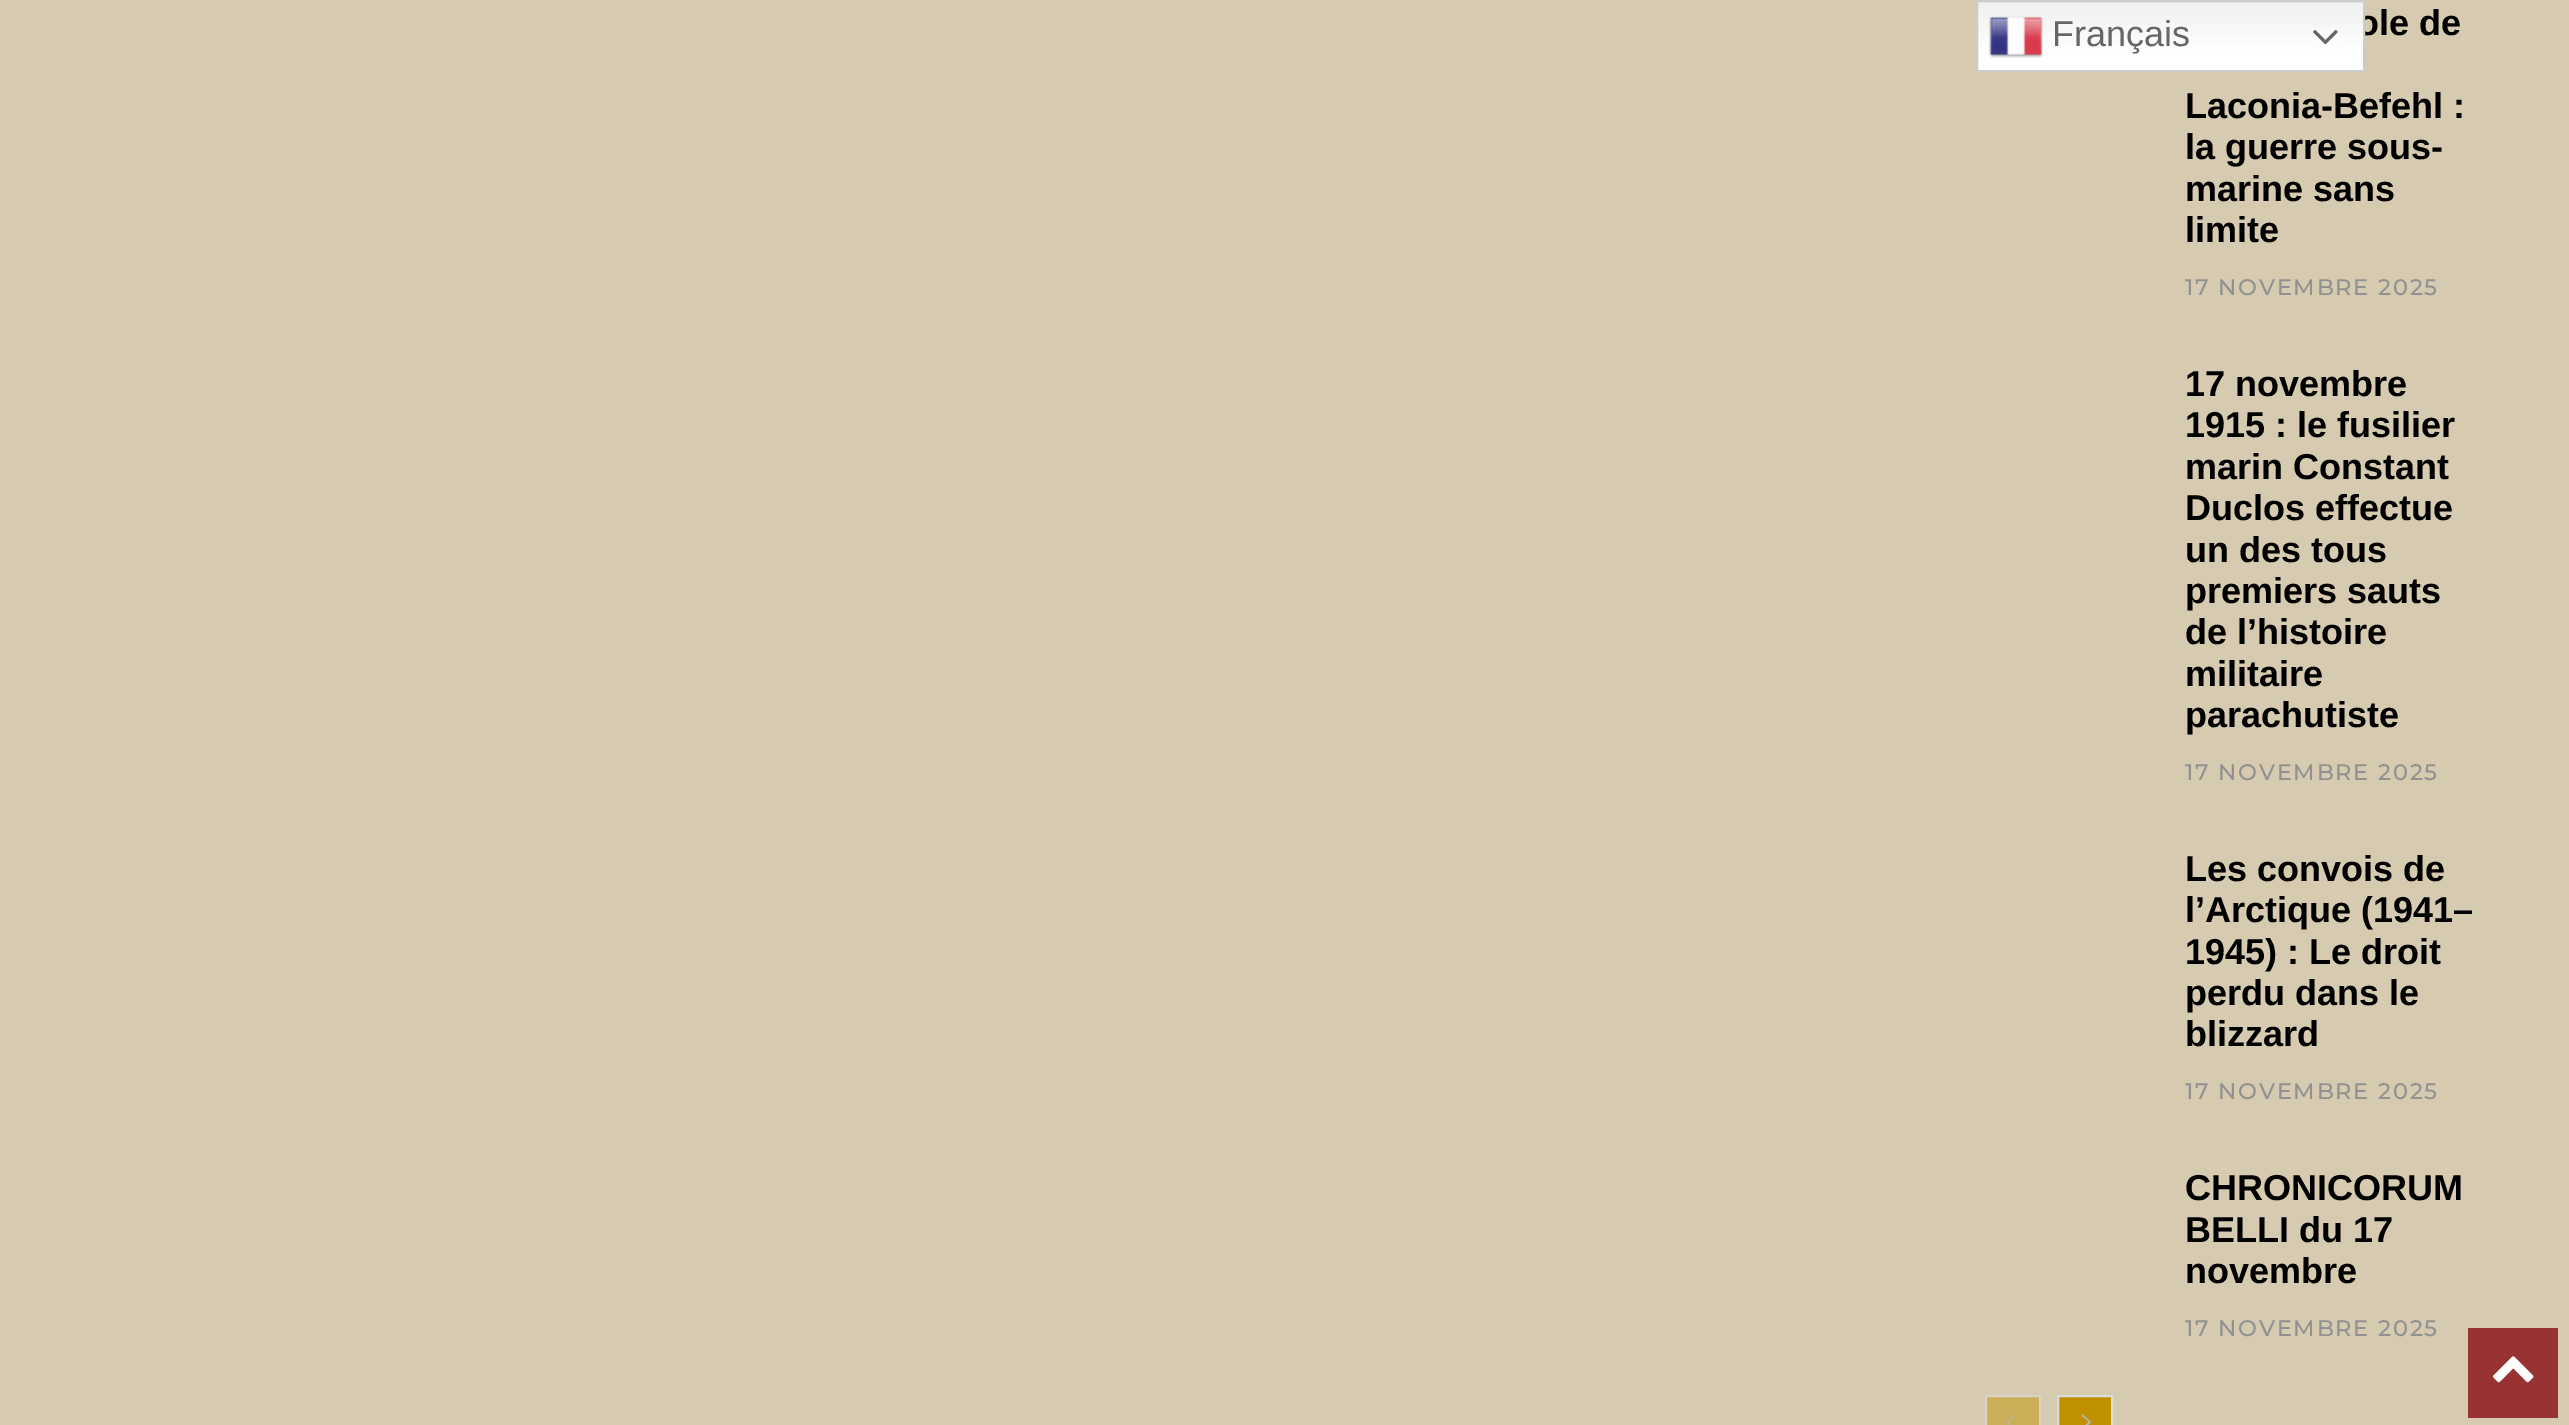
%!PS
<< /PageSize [2569 1425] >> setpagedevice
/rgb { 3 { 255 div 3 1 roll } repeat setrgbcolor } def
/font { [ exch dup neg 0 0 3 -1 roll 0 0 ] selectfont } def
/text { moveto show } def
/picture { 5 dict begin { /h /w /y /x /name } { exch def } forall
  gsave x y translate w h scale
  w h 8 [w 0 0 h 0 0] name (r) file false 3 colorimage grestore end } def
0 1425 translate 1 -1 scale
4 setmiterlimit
214 203 176 rgb
0 0 2569 1425 rectfill
203 174 88 rgb
1986 1396 moveto 54 0 rlineto 0 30 rlineto -54 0 rlineto closepath gsave fill grestore
217 212 198 rgb
2 setlinewidth
stroke
(img_03.rgb) 2006 1414 10 11 picture
191 144 0 rgb
2058 1396 moveto 54 0 rlineto 0 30 rlineto -54 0 rlineto closepath gsave fill grestore
220 220 220 rgb
stroke
(img_04.rgb) 2081 1414 11 11 picture
153 51 51 rgb
2468 1328 90 90 rectfill
(img_05.rgb) 2493 1356 41 27 picture
/LiberationSans-Bold 36 font
0 0 0 rgb
(ole de) 2357 35 text
gsave 1978 2 moveto 385 0 rlineto 0 68 rlineto -385 0 rlineto closepath clip newpath
<< /ShadingType 2 /ColorSpace /DeviceRGB /Coords [2170 0 2170 72] /Extend [true true] /Function << /FunctionType 3 /Domain [0 1] /Functions [<< /FunctionType 2 /Domain [0 1] /C0 [0.937 0.937 0.937] /C1 [1 1 1] /N 1 >> << /FunctionType 2 /Domain [0 1] /C0 [1 1 1] /C1 [1 1 1] /N 1 >>] /Bounds [0.7] /Encode [0 1 0 1] >> >> shfill grestore
204 204 204 rgb
1977 1 387 70 rectstroke
(img_02.rgb) 2313 30 25 15 picture
(img_01.rgb) 1989 16 54 42 picture
/LiberationSans-Regular 36 font
102 102 102 rgb
(Français) 2052 46 text
/LiberationSans-Bold 36 font
0 0 0 rgb
(Laconia-Befehl :) 2185 118 text
(la guerre sous-) 2185 159 text
(marine sans) 2185 201 text
(limite) 2185 242 text
/Montserrat-Medium 22.5 font
145 145 145 rgb
2185 295 moveto 1.75 0 (17 NOVEMBRE 2025) ashow
/LiberationSans-Bold 36 font
0 0 0 rgb
(17 novembre) 2185 396 text
(1915 : le fusilier) 2185 437 text
(marin Constant) 2185 479 text
(Duclos effectue) 2185 520 text
(un des tous) 2185 562 text
(premiers sauts) 2185 603 text
(de l’histoire) 2185 644 text
(militaire) 2185 686 text
(parachutiste) 2185 727 text
/Montserrat-Medium 22.5 font
145 145 145 rgb
2185 780 moveto 1.75 0 (17 NOVEMBRE 2025) ashow
/LiberationSans-Bold 36 font
0 0 0 rgb
(Les convois de) 2185 881 text
(l’Arctique \(1941–) 2185 922 text
(1945\) : Le droit) 2185 964 text
(perdu dans le) 2185 1005 text
(blizzard) 2185 1046 text
/Montserrat-Medium 22.5 font
145 145 145 rgb
2185 1099 moveto 1.75 0 (17 NOVEMBRE 2025) ashow
/LiberationSans-Bold 36 font
0 0 0 rgb
(CHRONICORUM) 2185 1200 text
(BELLI du 17) 2185 1242 text
(novembre) 2185 1283 text
/Montserrat-Medium 22.5 font
145 145 145 rgb
2185 1336 moveto 1.75 0 (17 NOVEMBRE 2025) ashow
showpage
